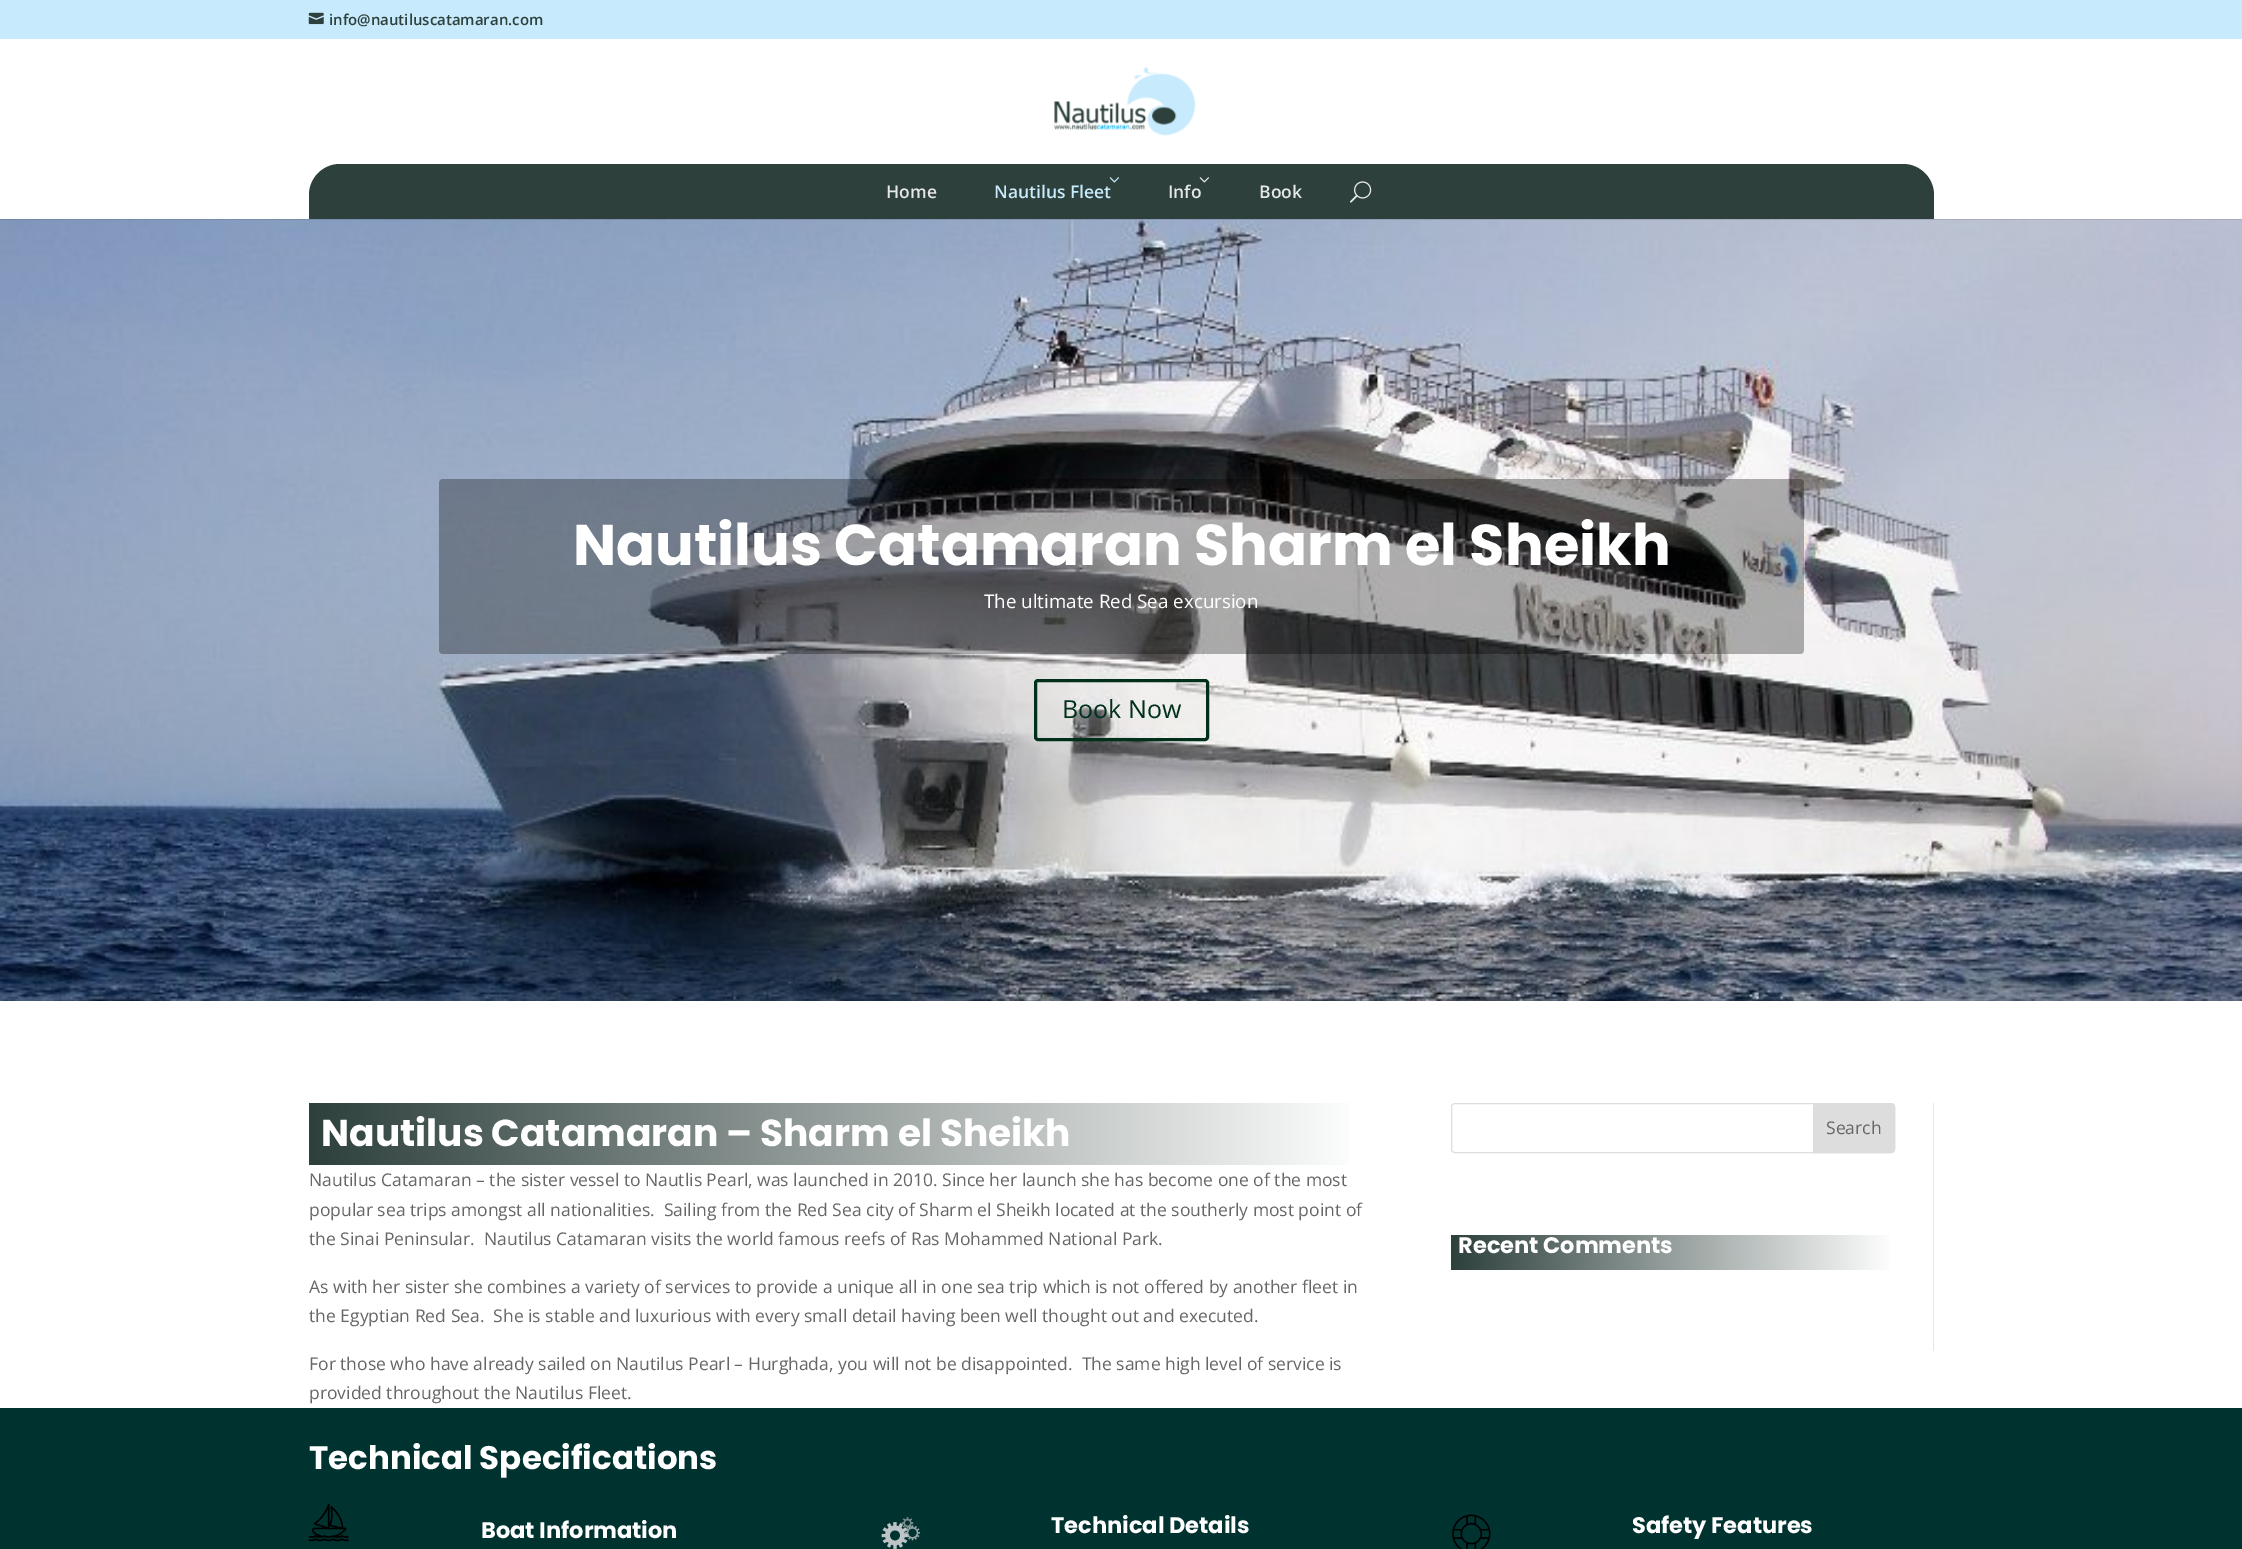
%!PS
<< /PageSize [2242 1549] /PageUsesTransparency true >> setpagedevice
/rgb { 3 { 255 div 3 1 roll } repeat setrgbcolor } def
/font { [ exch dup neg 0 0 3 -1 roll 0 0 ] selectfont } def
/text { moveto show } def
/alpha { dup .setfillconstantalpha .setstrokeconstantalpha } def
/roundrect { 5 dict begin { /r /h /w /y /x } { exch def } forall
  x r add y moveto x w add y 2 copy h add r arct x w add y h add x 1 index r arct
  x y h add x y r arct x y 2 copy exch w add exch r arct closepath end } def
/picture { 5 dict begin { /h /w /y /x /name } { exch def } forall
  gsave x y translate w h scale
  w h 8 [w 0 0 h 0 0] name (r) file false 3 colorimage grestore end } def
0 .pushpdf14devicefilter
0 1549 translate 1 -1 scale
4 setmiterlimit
255 255 255 rgb
0 0 2242 1549 rectfill
199 234 252 rgb
0 0 2242 39 rectfill
(img_01.rgb) 308 12 16 13 picture
(img_06.rgb) 0 219 2242 782 picture
0.1 alpha
0 0 0 rgb
0 219 moveto 0 1 rlineto 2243 0 rlineto 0 -180 rlineto -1 0 rlineto 0 179 rlineto closepath fill
1 alpha
(img_02.rgb) 1054 67 142 69 picture
45 64 60 rgb
340 164 moveto 1563 0 rlineto 17 0 31 14 31 31 rcurveto 0 24 rlineto -1625 0 rlineto 0 -24 rlineto 0 -17 14 -31 31 -31 rcurveto closepath fill
(img_03.rgb) 1109 177 10 6 picture
(img_04.rgb) 1199 177 10 6 picture
(img_05.rgb) 1350 181 22 22 picture
0.3 alpha
0 0 0 rgb
439 479 1365 175 4 roundrect fill
1 alpha
0 48 25 rgb
3 setlinewidth
1035.5 680.5 172 59 2.5 roundrect stroke
gsave 309 1103 moveto 1041 0 rlineto 0 62 rlineto -1041 0 rlineto closepath clip newpath
<< /ShadingType 2 /ColorSpace /DeviceRGB /Coords [309 1134 1363 1134] /Extend [true true] /Function << /FunctionType 2 /Domain [0 1] /C0 [0.176 0.251 0.235] /C1 [1 1 1] /N 1 >> >> shfill grestore
230 230 230 rgb
1933 1103 1 248 rectfill
221 221 221 rgb
1 setlinewidth
1451.5 1103.5 443 49 3.5 roundrect stroke
1813.5 1103.5 moveto 77.5 0 rlineto 2 0 3.5 1.5 3.5 3.5 rcurveto 0 42 rlineto 0 2 -1.5 3.5 -3.5 3.5 rcurveto -77.5 0 rlineto closepath gsave fill grestore
stroke
gsave 1451 1235 moveto 439 0 rlineto 0 35 rlineto -439 0 rlineto closepath clip newpath
<< /ShadingType 2 /ColorSpace /DeviceRGB /Coords [1451 1253 1895 1253] /Extend [true true] /Function << /FunctionType 2 /Domain [0 1] /C0 [0.176 0.251 0.235] /C1 [1 1 1] /N 1 >> >> shfill grestore
0 51 47 rgb
0 1408 2242 141 rectfill
(img_07.rgb) 308 1503 41 39 picture
(img_08.rgb) 881 1517 39 32 picture
(img_09.rgb) 1452 1514 39 35 picture
/OpenSans-SemiBold 15 font
45 64 60 rgb
(info@nautiluscatamaran.com) 329 25 text
/OpenSans-SemiBold 17.5 font
230 232 232 rgb
(Home) 886 198 text
199 234 252 rgb
(Nautilus Fleet) 994 198 text
230 232 232 rgb
(Info) 1168 198 text
(Book) 1259 198 text
/Poppins-Bold 57.5 font
255 255 255 rgb
(Nautilus Catamaran Sharm el Sheikh) 573 565 text
/OpenSans-Regular 18.75 font
(The ultimate Red Sea excursion) 984 608 text
/OpenSans-Regular 25 font
0 48 25 rgb
(Book Now) 1062 718 text
/Poppins-Bold 37.5 font
255 255 255 rgb
(Nautilus Catamaran – Sharm el Sheikh) 321 1146 text
/OpenSans-Regular 17.5 font
102 102 102 rgb
(Nautilus Catamaran – the sister vessel to Nautlis Pearl, was launched in 2010. Since her launch she has become one of the most) 309 1186 text
(popular sea trips amongst all nationalities.  Sailing from the Red Sea city of Sharm el Sheikh located at the southerly most point of) 309 1216 text
(the Sinai Peninsular.  Nautilus Catamaran visits the world famous reefs of Ras Mohammed National Park.) 309 1245 text
(As with her sister she combines a variety of services to provide a unique all in one sea trip which is not offered by another fleet in) 309 1293 text
(the Egyptian Red Sea.  She is stable and luxurious with every small detail having been well thought out and executed.) 309 1322 text
(For those who have already sailed on Nautilus Pearl – Hurghada, you will not be disappointed.  The same high level of service is) 309 1370 text
(provided throughout the Nautilus Fleet.) 309 1399 text
(Search) 1826 1134 text
/Poppins-Bold 22.5 font
255 255 255 rgb
(Recent Comments) 1458 1253 text
/Poppins-Bold 32.5 font
(Technical Specifications) 309 1469 text
/Poppins-Bold 22.5 font
(Boat Information) 481 1538 text
(Technical Details) 1051 1533 text
(Safety Features) 1632 1533 text
.poppdf14devicefilter showpage
